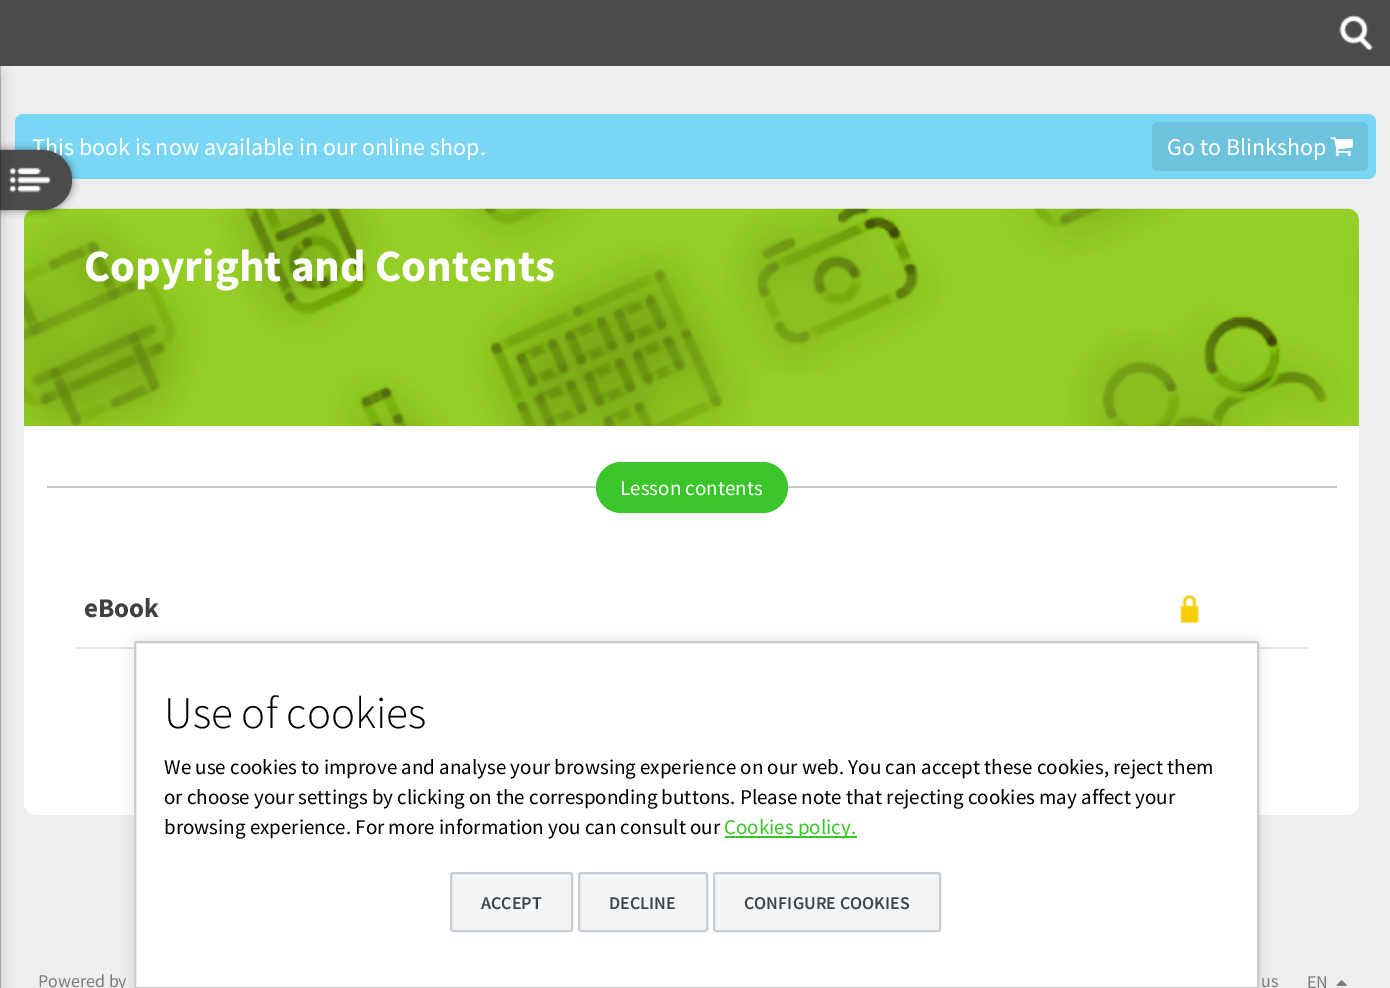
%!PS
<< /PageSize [1390 988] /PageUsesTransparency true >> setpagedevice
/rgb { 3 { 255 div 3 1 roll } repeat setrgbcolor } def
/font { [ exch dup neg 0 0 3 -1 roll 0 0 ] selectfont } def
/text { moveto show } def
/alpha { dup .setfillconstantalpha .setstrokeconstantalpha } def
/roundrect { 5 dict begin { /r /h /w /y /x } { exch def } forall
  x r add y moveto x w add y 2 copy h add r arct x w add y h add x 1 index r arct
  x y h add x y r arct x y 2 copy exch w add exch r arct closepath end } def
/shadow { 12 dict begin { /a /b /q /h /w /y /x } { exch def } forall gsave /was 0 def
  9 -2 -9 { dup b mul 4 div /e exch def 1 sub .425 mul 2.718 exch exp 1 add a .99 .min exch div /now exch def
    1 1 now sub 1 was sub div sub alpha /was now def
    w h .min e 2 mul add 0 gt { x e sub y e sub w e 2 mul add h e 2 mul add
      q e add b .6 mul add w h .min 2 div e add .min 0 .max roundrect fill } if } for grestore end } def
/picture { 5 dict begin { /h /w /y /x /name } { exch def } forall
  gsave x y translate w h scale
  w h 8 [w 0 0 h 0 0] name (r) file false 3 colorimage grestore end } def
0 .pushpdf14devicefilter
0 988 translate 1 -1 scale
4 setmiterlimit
238 238 238 rgb
0 0 1390 988 rectfill
121 215 245 rgb
15 114 1361 65 8 roundrect fill
109 194 221 rgb
1152 122 216 49 6 roundrect fill
(img_02.rgb) 1330 137 23 20 picture
255 255 255 rgb
24 209 1335 606 12 roundrect fill
(img_04.rgb) 24 208 1335 218 picture
0 0 0 rgb
-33 150 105 60 30 4 0.5 shadow
200 200 200 rgb
47 486 1290 2 rectfill
58 198 42 rgb
596 462 192 51 25.5 roundrect fill
229 229 229 rgb
77 647 1230 2 rectfill
(img_05.rgb) 1180 595 19 28 picture
(img_06.rgb) 1336 980 11 6 picture
0 0 0 rgb
134 641 1125 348 3 7.5 0.1 shadow
255 255 255 rgb
134 641 1125 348 3 roundrect fill
0.2 alpha
0 0 0 rgb
2 setlinewidth
135 642 1123 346 2 roundrect stroke
1 alpha
58 198 42 rgb
725 836 132 2 rectfill
244 245 247 rgb
451 873 121 58 2 roundrect gsave fill grestore
200 205 215 rgb
stroke
244 245 247 rgb
579 873 128 58 2 roundrect gsave fill grestore
200 205 215 rgb
stroke
244 245 247 rgb
714 873 226 58 2 roundrect gsave fill grestore
200 205 215 rgb
stroke
/SourceSansPro-Regular 24 font
255 255 255 rgb
(This book is now available in our online shop.) 32 155 text
(Go to Blinkshop) 1167 155 text
75 75 75 rgb
-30 150 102 60 30 roundrect fill
(img_03.rgb) 8 167 44 26 picture
0 0 0 rgb
-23 74 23 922 0 7.5 0.2 shadow
75 75 75 rgb
0 0 1390 66 rectfill
(img_01.rgb) 1339 14 34 36 picture
0.2 alpha
0 0 0 rgb
0 66 1 922 rectfill
/SourceSansPro-Bold 45 font
1 alpha
255 255 255 rgb
(Copyright and Contents) 84 281 text
/SourceSansPro-Regular 21 font
(Lesson contents) 620 495 text
/SourceSansPro-Bold 27 font
65 65 65 rgb
(eBook) 84 617 text
/SourceSansPro-Regular 18 font
123 123 123 rgb
(Powered by) 38 987 text
(us) 1261 987 text
(EN) 1307 988 text
/SourceSansPro-Light 45 font
0 0 0 rgb
(Use of cookies) 164 728 text
/SourceSansPro-Regular 21 font
(We use cookies to improve and analyse your browsing experience on our web. You can accept these cookies, reject them) 164 774 text
(or choose your settings by clicking on the corresponding buttons. Please note that rejecting cookies may affect your) 164 804 text
(browsing experience. For more information you can consult our) 164 834 text
58 198 42 rgb
(Cookies policy.) 724 834 text
/SourceSansPro-SemiBold 18 font
62 68 77 rgb
(ACCEPT) 481 909 text
(DECLINE) 609 909 text
(CONFIGURE COOKIES) 744 909 text
.poppdf14devicefilter showpage
